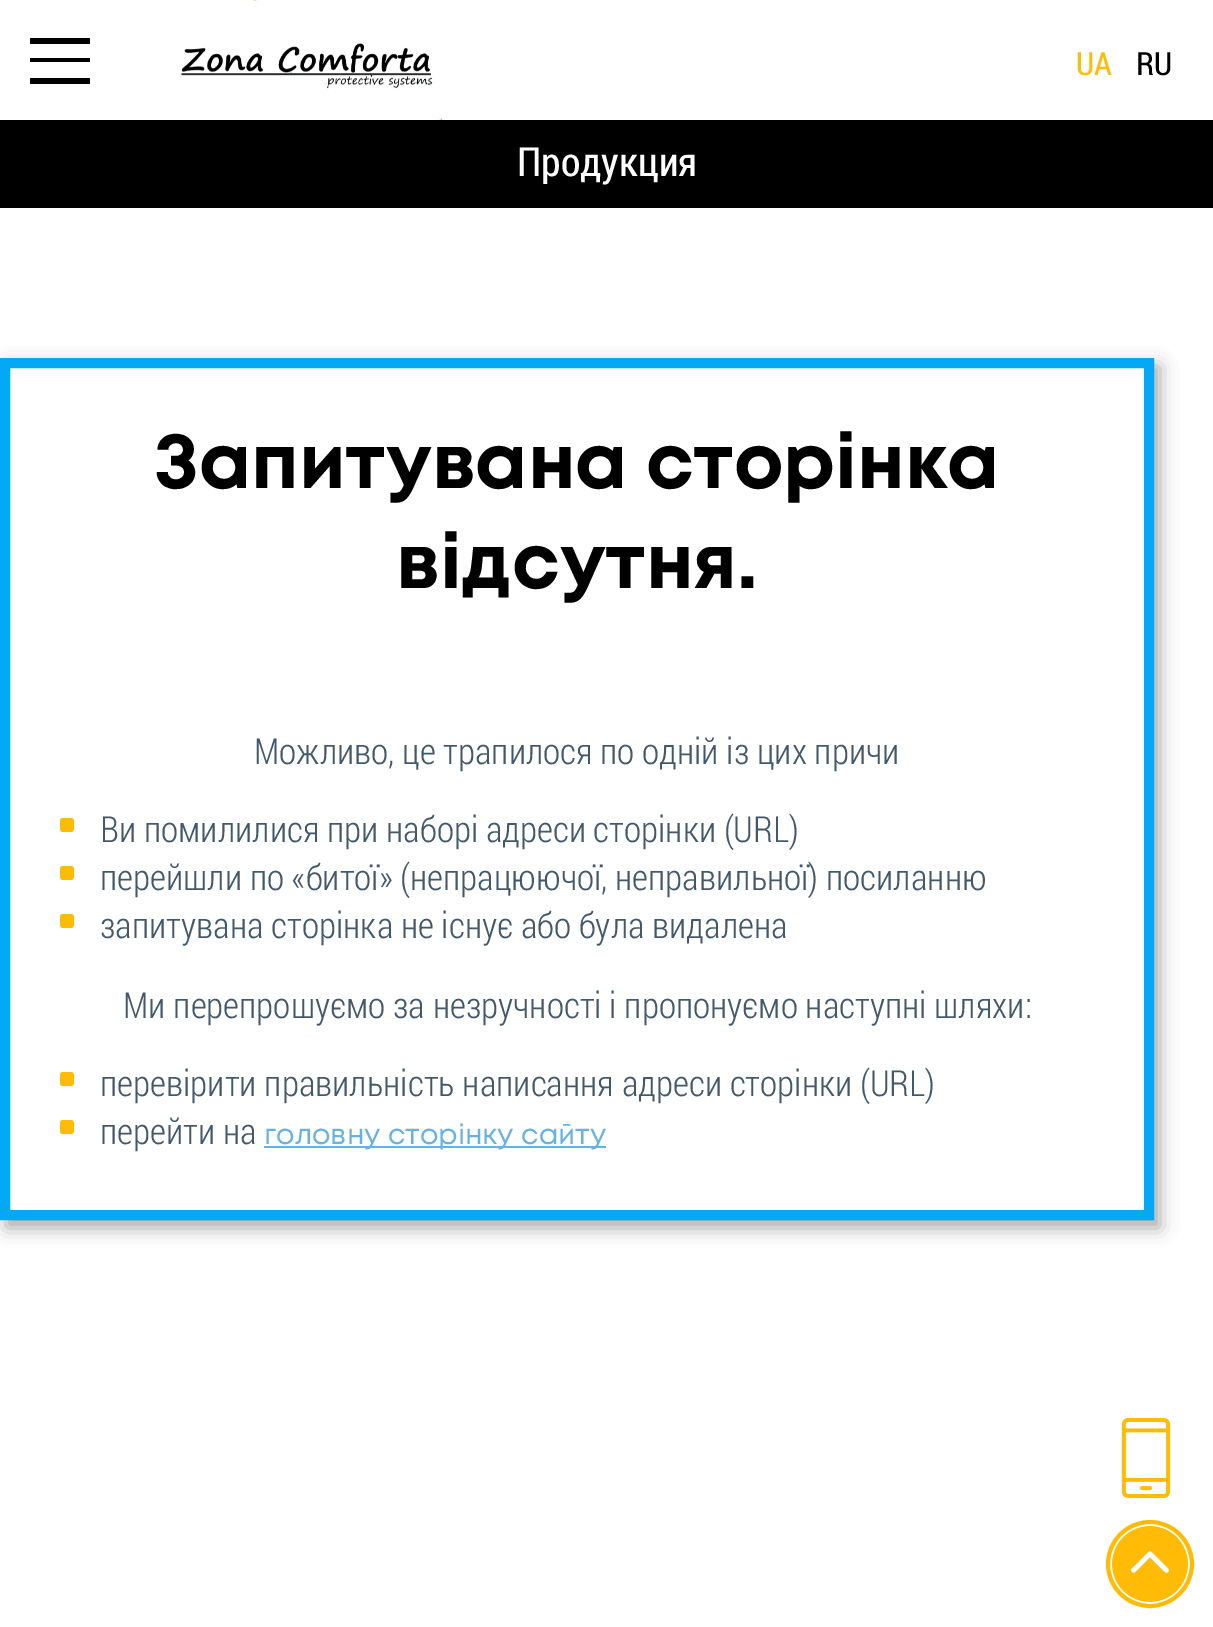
%!PS
<< /PageSize [1213 1627] /PageUsesTransparency true >> setpagedevice
/rgb { 3 { 255 div 3 1 roll } repeat setrgbcolor } def
/font { [ exch dup neg 0 0 3 -1 roll 0 0 ] selectfont } def
/text { moveto show } def
/alpha { dup .setfillconstantalpha .setstrokeconstantalpha } def
/circle { newpath 0 360 arc closepath } def
/roundrect { 5 dict begin { /r /h /w /y /x } { exch def } forall
  x r add y moveto x w add y 2 copy h add r arct x w add y h add x 1 index r arct
  x y h add x y r arct x y 2 copy exch w add exch r arct closepath end } def
/shadow { 12 dict begin { /a /b /q /h /w /y /x } { exch def } forall gsave /was 0 def
  9 -2 -9 { dup b mul 4 div /e exch def 1 sub .425 mul 2.718 exch exp 1 add a .99 .min exch div /now exch def
    1 1 now sub 1 was sub div sub alpha /was now def
    w h .min e 2 mul add 0 gt { x e sub y e sub w e 2 mul add h e 2 mul add
      q e add b .6 mul add w h .min 2 div e add .min 0 .max roundrect fill } if } for grestore end } def
/picture { 5 dict begin { /h /w /y /x /name } { exch def } forall
  gsave x y translate w h scale
  w h 8 [w 0 0 h 0 0] name (r) file false 3 colorimage grestore end } def
0 .pushpdf14devicefilter
0 1627 translate 1 -1 scale
4 setmiterlimit
255 255 255 rgb
0 0 1213 1627 rectfill
0 0 0 rgb
30 58 60 4 rectfill
30 38 60 6 rectfill
30 78 60 6 rectfill
(img_01.rgb) 181 0 261 120 picture
0 120 1213 88 rectfill
gsave
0 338 moveto 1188 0 rlineto 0 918 rlineto -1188 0 rlineto closepath 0 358 moveto 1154 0 rlineto 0 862 rlineto -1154 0 rlineto closepath eoclip newpath
168 168 168 rgb
6 366 1154 862 0 9 1 shadow
grestore
3 169 244 rgb
10 setlinewidth
5 363 1144 852 rectstroke
255 187 6 rgb
60 818 14 14 3 roundrect fill
60 866 14 14 3 roundrect fill
60 914 14 14 3 roundrect fill
60 1072 14 14 3 roundrect fill
60 1120 14 14 3 roundrect fill
102 178 228 rgb
264 1146 342 2 rectfill
(img_02.rgb) 1121 1418 50 80 picture
(img_03.rgb) 1112 1526 76 76 picture
255 187 6 rgb
4 setlinewidth
1150 1564 42 circle stroke
/RobotoCondensed-Regular 32 font
(UA) 1076 75 text
0 0 0 rgb
(RU) 1136 75 text
/RobotoCondensed-Regular 40 font
255 255 255 rgb
(Продукция) 517 176 text
/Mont-Bold 76 font
0 0 0 rgb
(Запитувана сторінка) 154 488 text
(відсутня.) 396 588 text
/RobotoCondensed-Light 36 font
67 89 105 rgb
(Можливо, це трапилося по одній із цих причи) 254 764 text
(Ви помилилися при наборі адреси сторінки \(URL\)) 100 842 text
(перейшли по «битої» \(непрацюючої, неправильної\) посиланню) 100 890 text
(запитувана сторінка не існує або була видалена) 100 938 text
(Ми перепрошуємо за незручності і пропонуємо наступні шляхи:) 123 1018 text
(перевірити правильність написання адреси сторінки \(URL\)) 100 1096 text
(перейти на) 100 1144 text
/Mont-Regular 28 font
102 178 228 rgb
(головну сторінку сайту) 264 1144 text
.poppdf14devicefilter showpage
